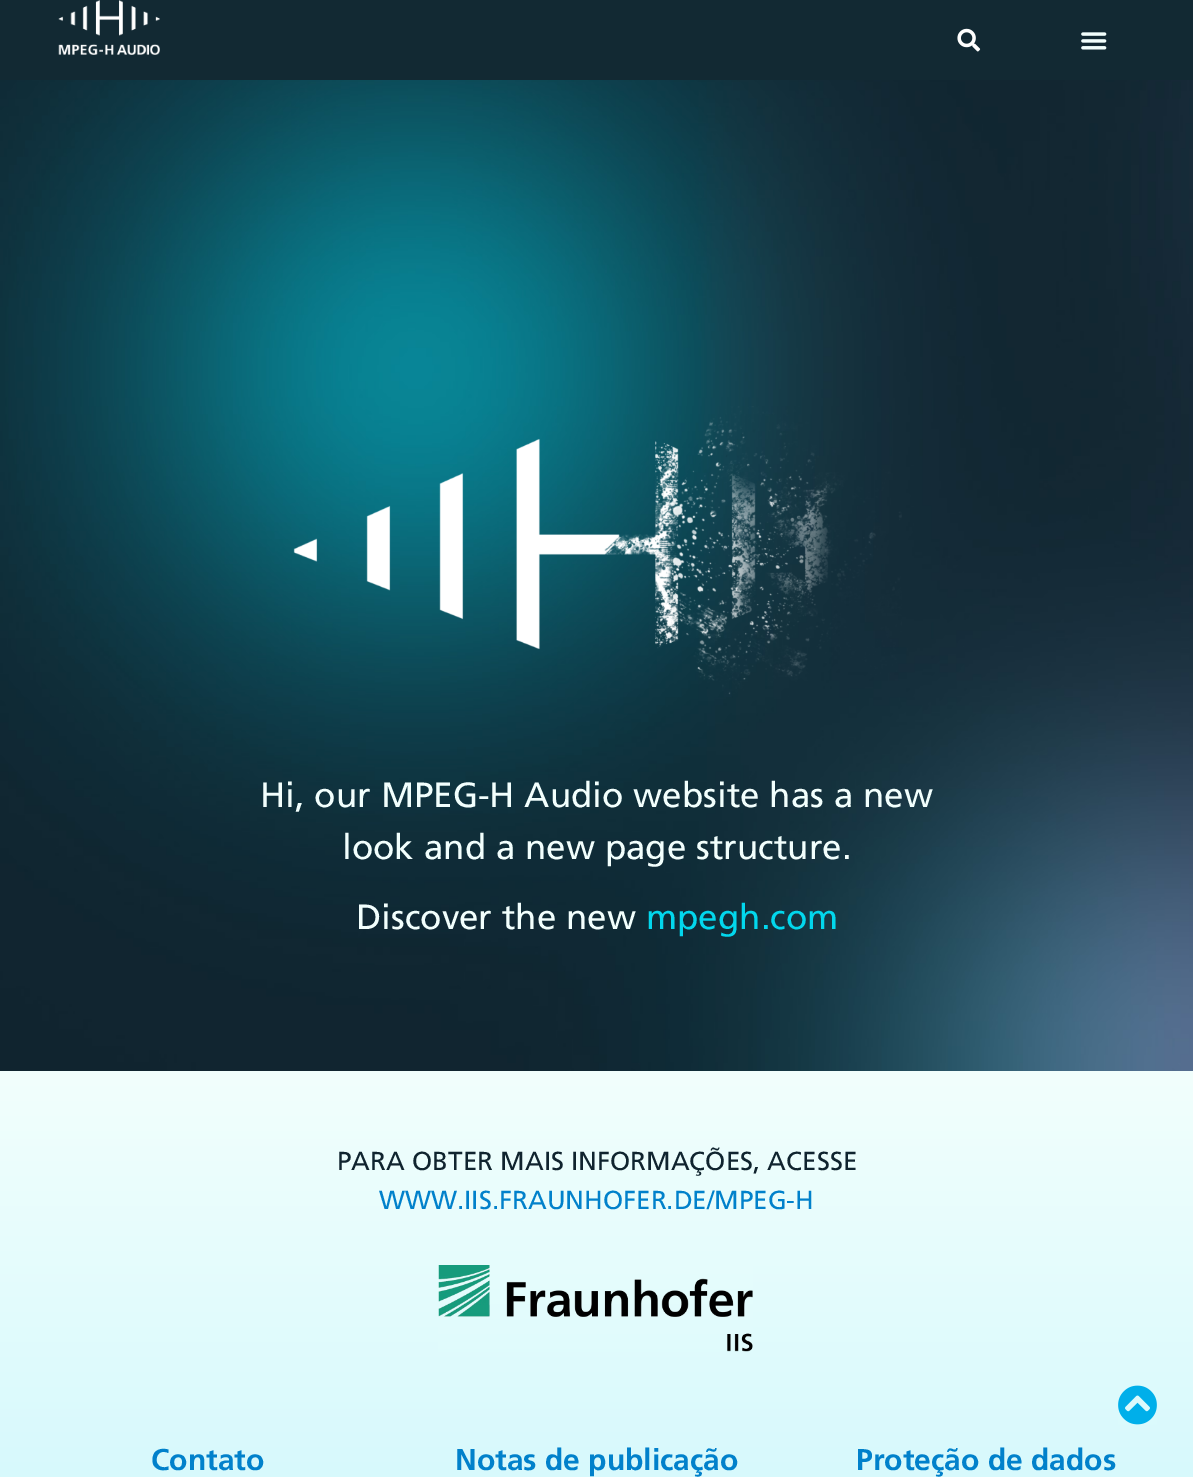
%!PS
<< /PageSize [1193 1477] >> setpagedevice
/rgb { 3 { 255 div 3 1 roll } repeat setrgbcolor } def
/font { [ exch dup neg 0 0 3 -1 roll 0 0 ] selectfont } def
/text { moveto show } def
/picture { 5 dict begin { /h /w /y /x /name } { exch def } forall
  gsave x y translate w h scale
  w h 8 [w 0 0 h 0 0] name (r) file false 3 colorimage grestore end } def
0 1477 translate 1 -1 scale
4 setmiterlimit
255 255 255 rgb
0 0 1193 1477 rectfill
18 41 51 rgb
0 0 1193 80 rectfill
(img_01.rgb) 58 0 102 55 picture
(img_02.rgb) 957 28 24 24 picture
(img_03.rgb) 1081 32 26 18 picture
(img_04.rgb) 0 80 1193 991 picture
(img_05.rgb) 293 406 609 289 picture
gsave 0 1071 moveto 1193 0 rlineto 0 406 rlineto -1193 0 rlineto closepath clip newpath
<< /ShadingType 2 /ColorSpace /DeviceRGB /Coords [597 1071 597 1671] /Extend [true true] /Function << /FunctionType 2 /Domain [0 1] /C0 [0.949 1 0.992] /C1 [0.792 0.965 0.984] /N 1 >> >> shfill grestore
(img_06.rgb) 438 1265 315 87 picture
(img_07.rgb) 1118 1385 39 40 picture
/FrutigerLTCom-Regular 35 font
242 255 253 rgb
(Hi, our MPEG-H Audio website has a new) 260 807 text
(look and a new page structure.) 342 859 text
(Discover the new) 356 929 text
2 215 237 rgb
(mpegh.com) 646 929 text
/FrutigerLTCom-Regular 26 font
16 36 47 rgb
(PARA OBTER MAIS INFORMAÇÕES, ACESSE) 337 1170 text
1 129 203 rgb
(WWW.IIS.FRAUNHOFER.DE/MPEG-H) 379 1209 text
/FrutigerLTCom-Bold 30 font
(Contato) 151 1470 text
(Notas de publicação) 455 1470 text
(Proteção de dados) 856 1470 text
showpage
